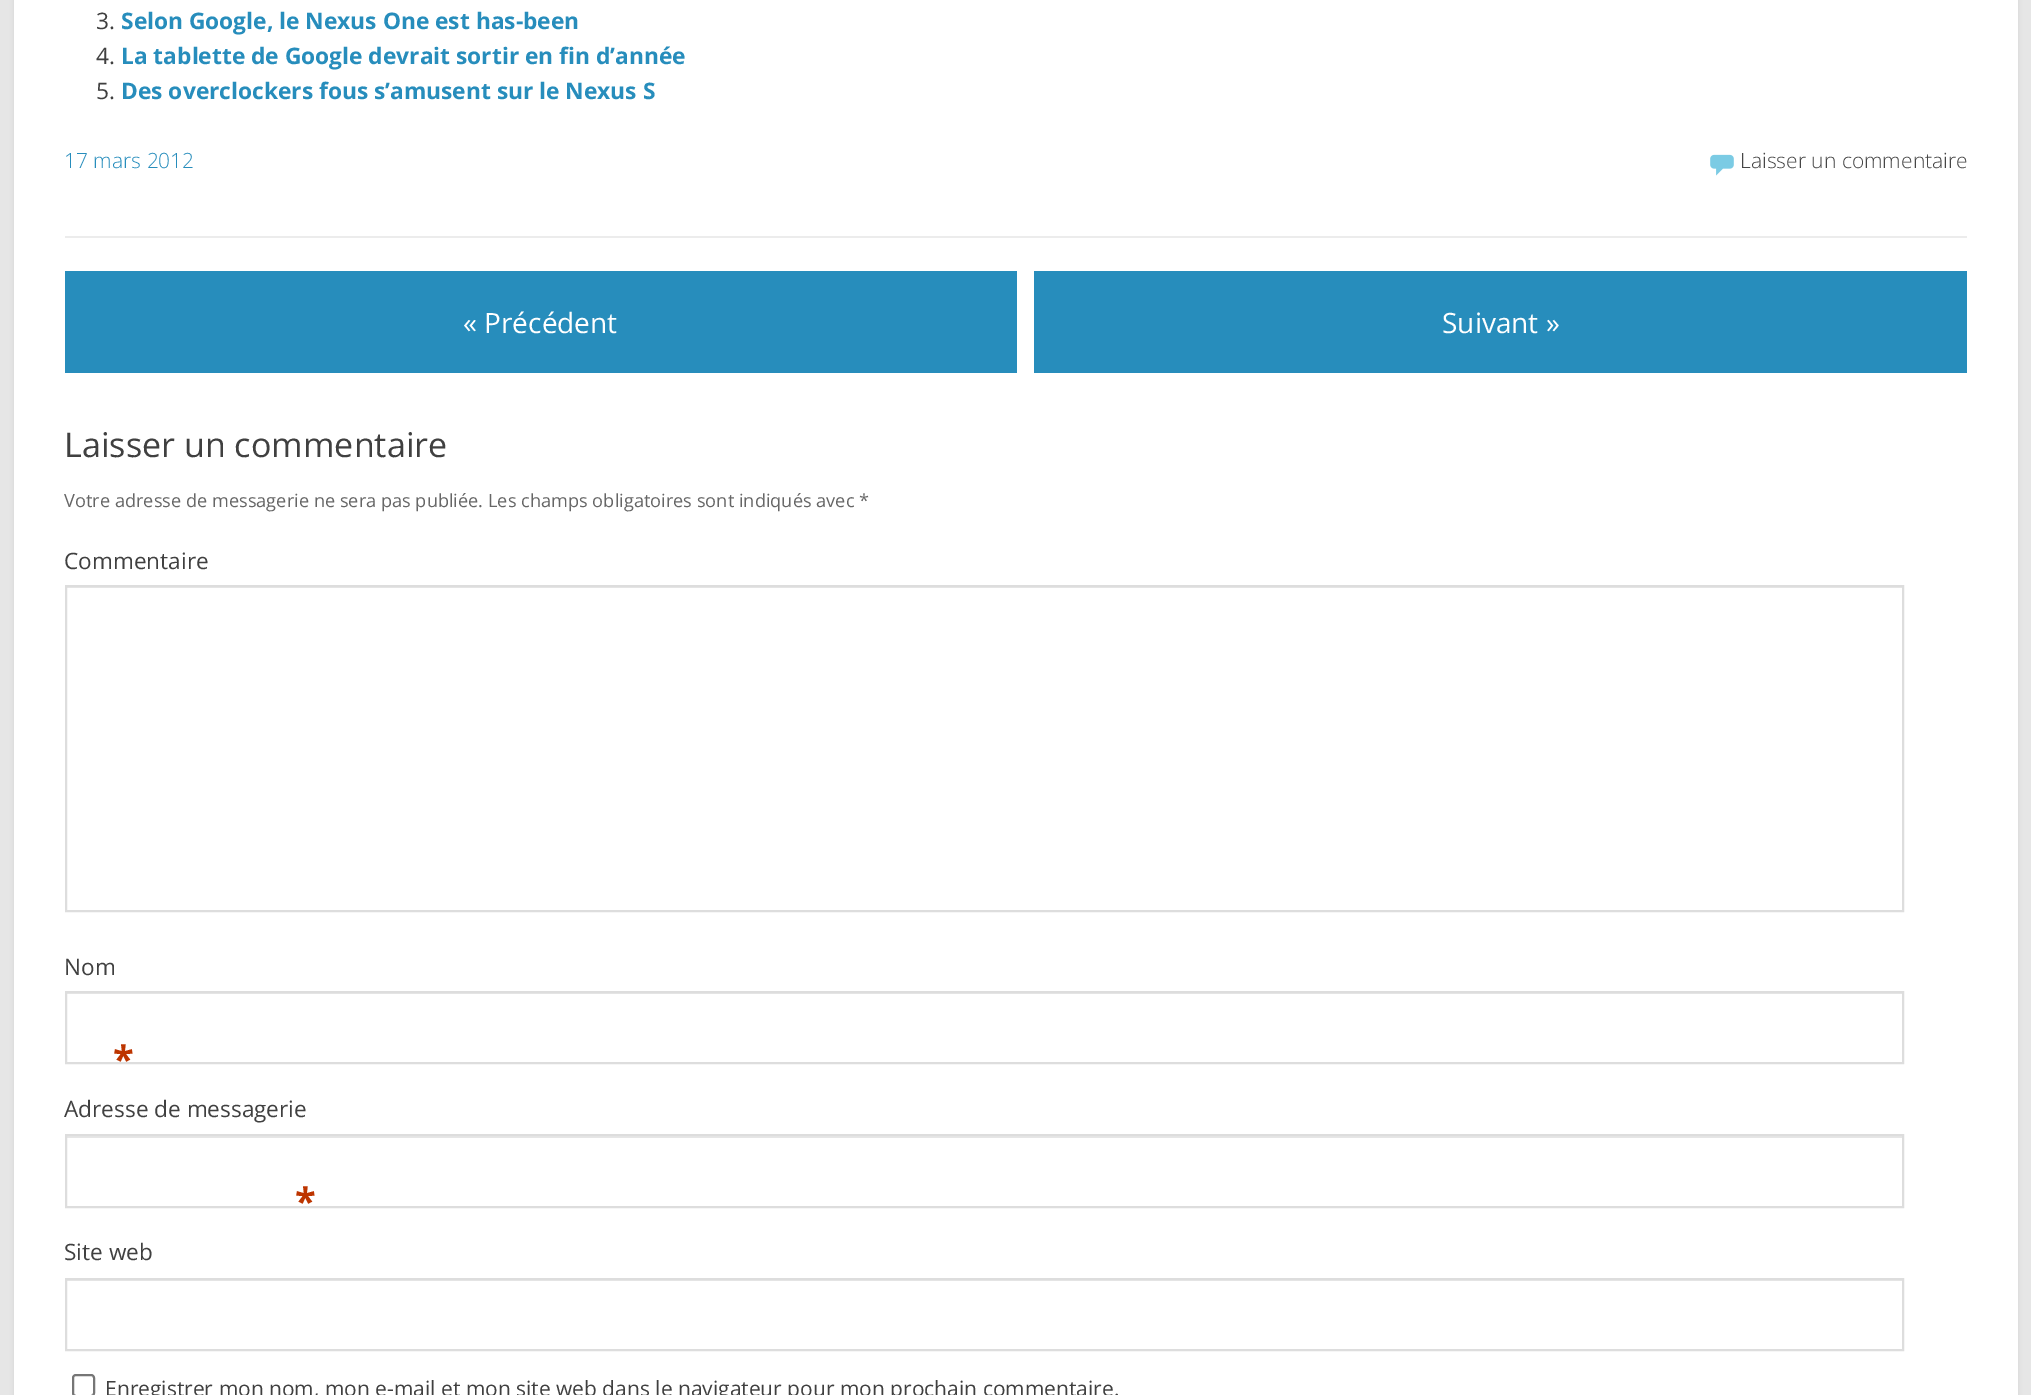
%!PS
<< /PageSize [2031 1395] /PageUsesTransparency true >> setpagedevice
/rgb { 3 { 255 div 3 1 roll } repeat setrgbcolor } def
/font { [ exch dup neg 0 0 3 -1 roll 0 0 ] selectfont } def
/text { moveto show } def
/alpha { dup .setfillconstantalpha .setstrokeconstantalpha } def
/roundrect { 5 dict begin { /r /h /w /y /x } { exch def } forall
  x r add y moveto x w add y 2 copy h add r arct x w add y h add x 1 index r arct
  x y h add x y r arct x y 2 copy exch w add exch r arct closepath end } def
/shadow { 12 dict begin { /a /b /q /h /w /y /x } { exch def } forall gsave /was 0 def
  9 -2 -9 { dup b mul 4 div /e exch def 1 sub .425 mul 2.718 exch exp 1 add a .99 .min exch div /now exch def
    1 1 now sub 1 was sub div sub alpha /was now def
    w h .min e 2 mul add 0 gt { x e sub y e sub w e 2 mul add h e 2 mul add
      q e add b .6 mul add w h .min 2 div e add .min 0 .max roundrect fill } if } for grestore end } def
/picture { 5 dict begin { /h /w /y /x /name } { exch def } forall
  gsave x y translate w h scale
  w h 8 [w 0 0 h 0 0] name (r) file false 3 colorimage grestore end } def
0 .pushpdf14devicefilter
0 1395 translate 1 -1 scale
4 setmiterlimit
230 230 230 rgb
0 0 2031 1395 rectfill
0 0 0 rgb
14 -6 2004 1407 0 2 0.07 shadow
255 255 255 rgb
14 0 2004 1395 rectfill
236 236 236 rgb
65 236 1902 2 rectfill
(img_01.rgb) 1710 154 24 22 picture
39 141 188 rgb
65 271 952 102 rectfill
1034 271 933 102 rectfill
230 230 230 rgb
67 587 1835 1 rectfill
221 221 221 rgb
2 setlinewidth
66 586 1837 325 rectstroke
230 230 230 rgb
67 993 1835 1 rectfill
221 221 221 rgb
66 992 1837 71 rectstroke
230 230 230 rgb
67 1136 1835 2 rectfill
221 221 221 rgb
66 1135 1837 72 rectstroke
230 230 230 rgb
67 1280 1835 1 rectfill
221 221 221 rgb
66 1279 1837 71 rectstroke
118 118 118 rgb
73 1375 21 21 3 roundrect stroke
/OpenSans-Regular 22.75 font
64 64 64 rgb
(3.) 96 29 text
/OpenSans-Bold 22.75 font
39 141 188 rgb
(Selon Google, le Nexus One est has-been) 121 29 text
/OpenSans-Regular 22.75 font
64 64 64 rgb
(4.) 96 64 text
/OpenSans-Bold 22.75 font
39 141 188 rgb
(La tablette de Google devrait sortir en fin d’année) 121 64 text
/OpenSans-Regular 22.75 font
64 64 64 rgb
(5.) 96 99 text
/OpenSans-Bold 22.75 font
39 141 188 rgb
(Des overclockers fous s’amusent sur le Nexus S) 121 99 text
/OpenSans-Light 21 font
(17 mars 2012) 64 168 text
70 70 70 rgb
(Laisser un commentaire) 1740 168 text
/OpenSans-Regular 28 font
255 255 255 rgb
(« Précédent) 463 333 text
(Suivant ») 1442 333 text
/OpenSans-Regular 34.1 font
64 64 64 rgb
(Laisser un commentaire) 64 457 text
/OpenSans-Regular 18.2 font
102 102 102 rgb
(Votre adresse de messagerie ne sera pas publiée.) 64 507 text
(Les champs obligatoires sont indiqués avec) 488 507 text
(*) 859 507 text
/OpenSans-Regular 22.6 font
64 64 64 rgb
(Commentaire) 64 569 text
(Nom) 64 975 text
/OpenSans-Bold 38 font
189 53 0 rgb
(*) 113 1073 text
/OpenSans-Regular 22.6 font
64 64 64 rgb
(Adresse de messagerie) 64 1117 text
/OpenSans-Bold 38 font
189 53 0 rgb
(*) 295 1215 text
/OpenSans-Regular 22.6 font
64 64 64 rgb
(Site web) 64 1260 text
/OpenSans-Regular 21 font
(Enregistrer mon nom, mon e-mail et mon site web dans le navigateur pour mon prochain commentaire.) 105 1396 text
.poppdf14devicefilter showpage
